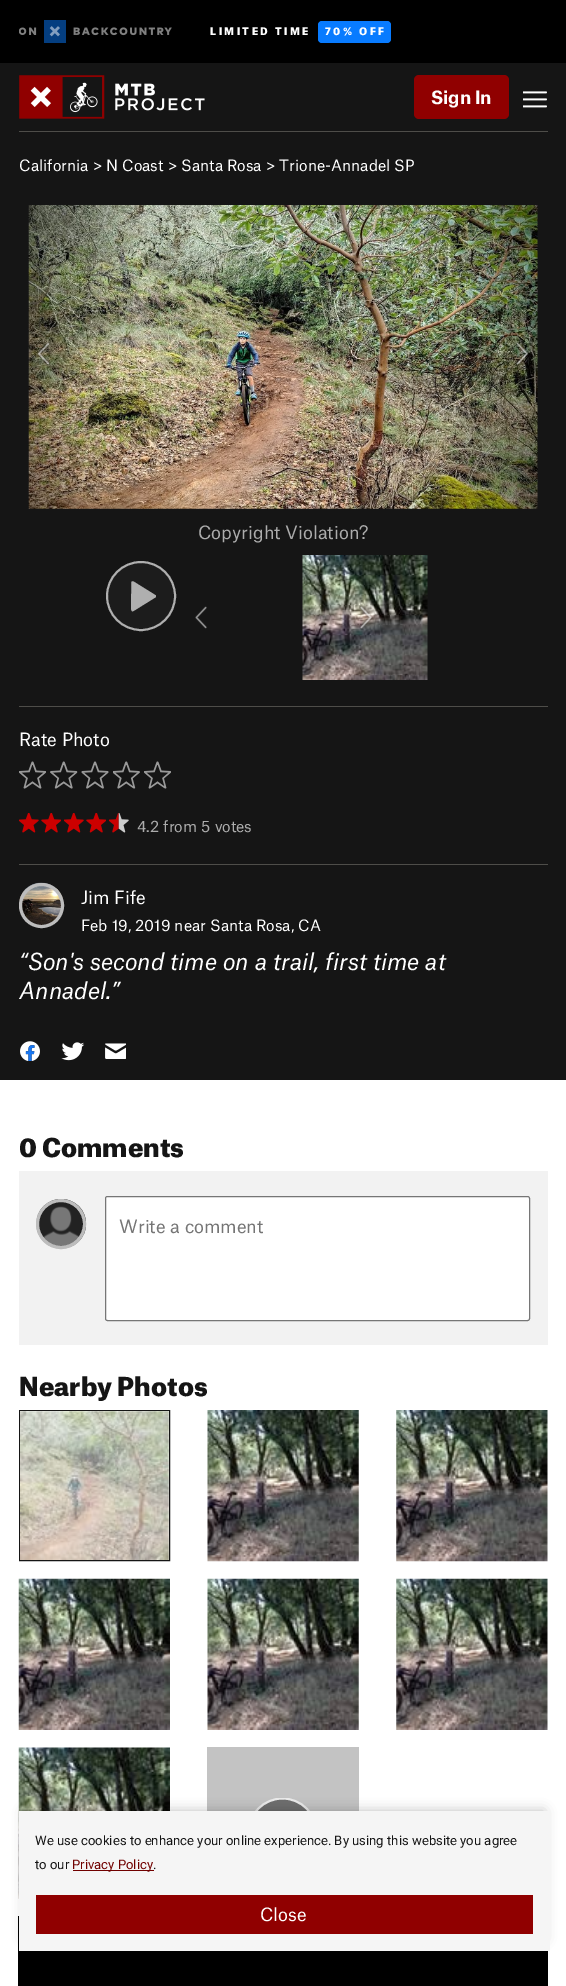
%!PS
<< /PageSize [566 1986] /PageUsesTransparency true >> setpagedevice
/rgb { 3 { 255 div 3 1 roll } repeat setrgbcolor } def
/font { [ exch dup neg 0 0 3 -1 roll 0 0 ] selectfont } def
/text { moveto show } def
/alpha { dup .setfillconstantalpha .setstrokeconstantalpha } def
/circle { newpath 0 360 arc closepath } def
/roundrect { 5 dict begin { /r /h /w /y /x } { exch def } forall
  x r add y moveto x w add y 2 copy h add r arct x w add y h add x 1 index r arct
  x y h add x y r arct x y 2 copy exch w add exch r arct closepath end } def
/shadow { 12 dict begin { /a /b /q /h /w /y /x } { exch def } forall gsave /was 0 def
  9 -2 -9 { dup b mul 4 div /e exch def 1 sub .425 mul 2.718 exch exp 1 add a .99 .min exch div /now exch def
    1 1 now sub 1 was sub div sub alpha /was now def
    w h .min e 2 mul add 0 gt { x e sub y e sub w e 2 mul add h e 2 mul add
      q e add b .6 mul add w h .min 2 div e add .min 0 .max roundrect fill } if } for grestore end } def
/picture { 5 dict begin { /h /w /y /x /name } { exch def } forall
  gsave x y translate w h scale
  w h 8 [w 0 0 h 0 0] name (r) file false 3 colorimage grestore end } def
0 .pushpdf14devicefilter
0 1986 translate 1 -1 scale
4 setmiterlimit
255 255 255 rgb
0 0 566 1986 rectfill
21 21 21 rgb
0 63 566 1017 rectfill
0 0 0 rgb
0 0 566 63 rectfill
(img_01.rgb) 19 20 153 23 picture
8 123 255 rgb
318 21 73 22 4 roundrect fill
(img_02.rgb) 19 75 186 44 picture
144 0 0 rgb
414 75 95 44 5 roundrect fill
(img_03.rgb) 523 91 24 17 picture
78 77 73 rgb
19 131 529 1 rectfill
(img_04.rgb) 28 205 510 304 picture
(img_05.rgb) 36 341 15 25 picture
(img_06.rgb) 515 341 14 24 picture
28 28 28 rgb
141 596 34 circle gsave fill grestore
175 175 175 rgb
1.9 setlinewidth
stroke
156 596 moveto 0 -0.5 rlineto -22.5 -14 rlineto -1 -0.5 -2 0 -2 0.5 rcurveto -0.5 23.5 rlineto 0 3 0 7 2.5 5.5 rcurveto 22.5 -14 rlineto 0 -1 rlineto eofill
(img_07.rgb) 195 606 12 23 picture
(img_08.rgb) 302 555 126 125 picture
(img_09.rgb) 359 605 14 24 picture
78 77 73 rgb
19 706 529 1 rectfill
(img_10.rgb) 19 761 27 28 picture
(img_11.rgb) 50 761 28 28 picture
(img_12.rgb) 81 761 28 28 picture
(img_13.rgb) 113 761 27 28 picture
(img_10.rgb) 144 761 27 28 picture
(img_14.rgb) 19 813 20 20 picture
(img_15.rgb) 41 813 20 20 picture
(img_14.rgb) 64 813 20 20 picture
(img_15.rgb) 86 813 20 20 picture
(img_16.rgb) 109 813 20 20 picture
19 864 529 1 rectfill
(img_17.rgb) 19 882 45 45 picture
189 189 189 rgb
3 setlinewidth
41.5 905.5 21 circle stroke
(img_18.rgb) 20 1041 20 20 picture
(img_19.rgb) 61 1042 24 19 picture
(img_20.rgb) 105 1043 21 16 picture
242 242 242 rgb
19 1171 529 174 rectfill
(img_21.rgb) 36 1199 50 50 picture
189 189 189 rgb
61 1224 23.5 circle stroke
255 255 255 rgb
105.5 1196.5 424 124 2 roundrect gsave fill grestore
118 118 118 rgb
1 setlinewidth
stroke
21 21 21 rgb
19.5 1410.5 150 150 rectstroke
(img_22.rgb) 20 1411 149 149 picture
(img_23.rgb) 207 1410 152 152 picture
(img_24.rgb) 396 1410 152 152 picture
(img_25.rgb) 18 1578 152 152 picture
(img_26.rgb) 207 1578 152 152 picture
(img_27.rgb) 396 1578 152 152 picture
(img_28.rgb) 18 1747 152 152 picture
195 195 195 rgb
207 1747 152 64 rectfill
110 110 110 rgb
282.5 1832.5 34 circle fill
gsave
248 1798 70 70 rectclip
235 235 235 rgb
1.9 setlinewidth
282.5 1832.5 34 circle stroke
grestore
0 0 0 rgb
18 1916 530 70 rectfill
25 1811 519 128 0 6 0.25 shadow
245 245 245 rgb
19 1811 531 140 rectfill
113 1 0 rgb
73 1870 81 1 rectfill
144 0 0 rgb
36 1895 497 39 rectfill
/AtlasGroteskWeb-Black 10 font
255 255 255 rgb
210 35 moveto 2.5 0 (LIMITED TIME) ashow
325 35 moveto 2.5 0 (70% OFF) ashow
/AtlasGroteskWeb-Bold 17.5 font
(Sign In) 431 104 text
/AtlasGroteskWeb-Regular 15 font
(California > N Coast > Santa Rosa > Trione-Annadel SP) 19 171 text
/AtlasGroteskWeb-Regular 17.5 font
172 172 172 rgb
(Copyright Violation?) 198 539 text
255 255 255 rgb
(Rate Photo) 19 746 text
/AtlasGroteskWeb-Regular 15 font
172 172 172 rgb
(4.2 from 5 votes) 137 832 text
/AtlasGroteskWeb-Regular 17.5 font
255 255 255 rgb
(Jim Fife) 81 904 text
/AtlasGroteskWeb-Regular 15 font
(Feb 19, 2019 near Santa Rosa, CA) 81 931 text
/AtlasGroteskWeb-Italic 22.5 font
(“Son's second time on a trail, first time at) 19 970 text
(Annadel.”) 19 999 text
/AtlasGroteskWeb-Black 25 font
21 21 21 rgb
(0 Comments) 19 1157 text
/AtlasGroteskWeb-Regular 17.5 font
117 117 117 rgb
(Write a comment) 119 1233 text
/AtlasGroteskWeb-Black 25 font
21 21 21 rgb
(Nearby Photos) 19 1396 text
/Roboto-Regular 13.1 font
(We use cookies to enhance your online experience. By using this website you agree) 35 1845 text
(to our) 35 1869 text
113 1 0 rgb
(Privacy Policy) 72 1869 text
21 21 21 rgb
(.) 153 1869 text
/AtlasGroteskWeb-Regular 17.5 font
255 255 255 rgb
(Close) 260 1921 text
.poppdf14devicefilter showpage
